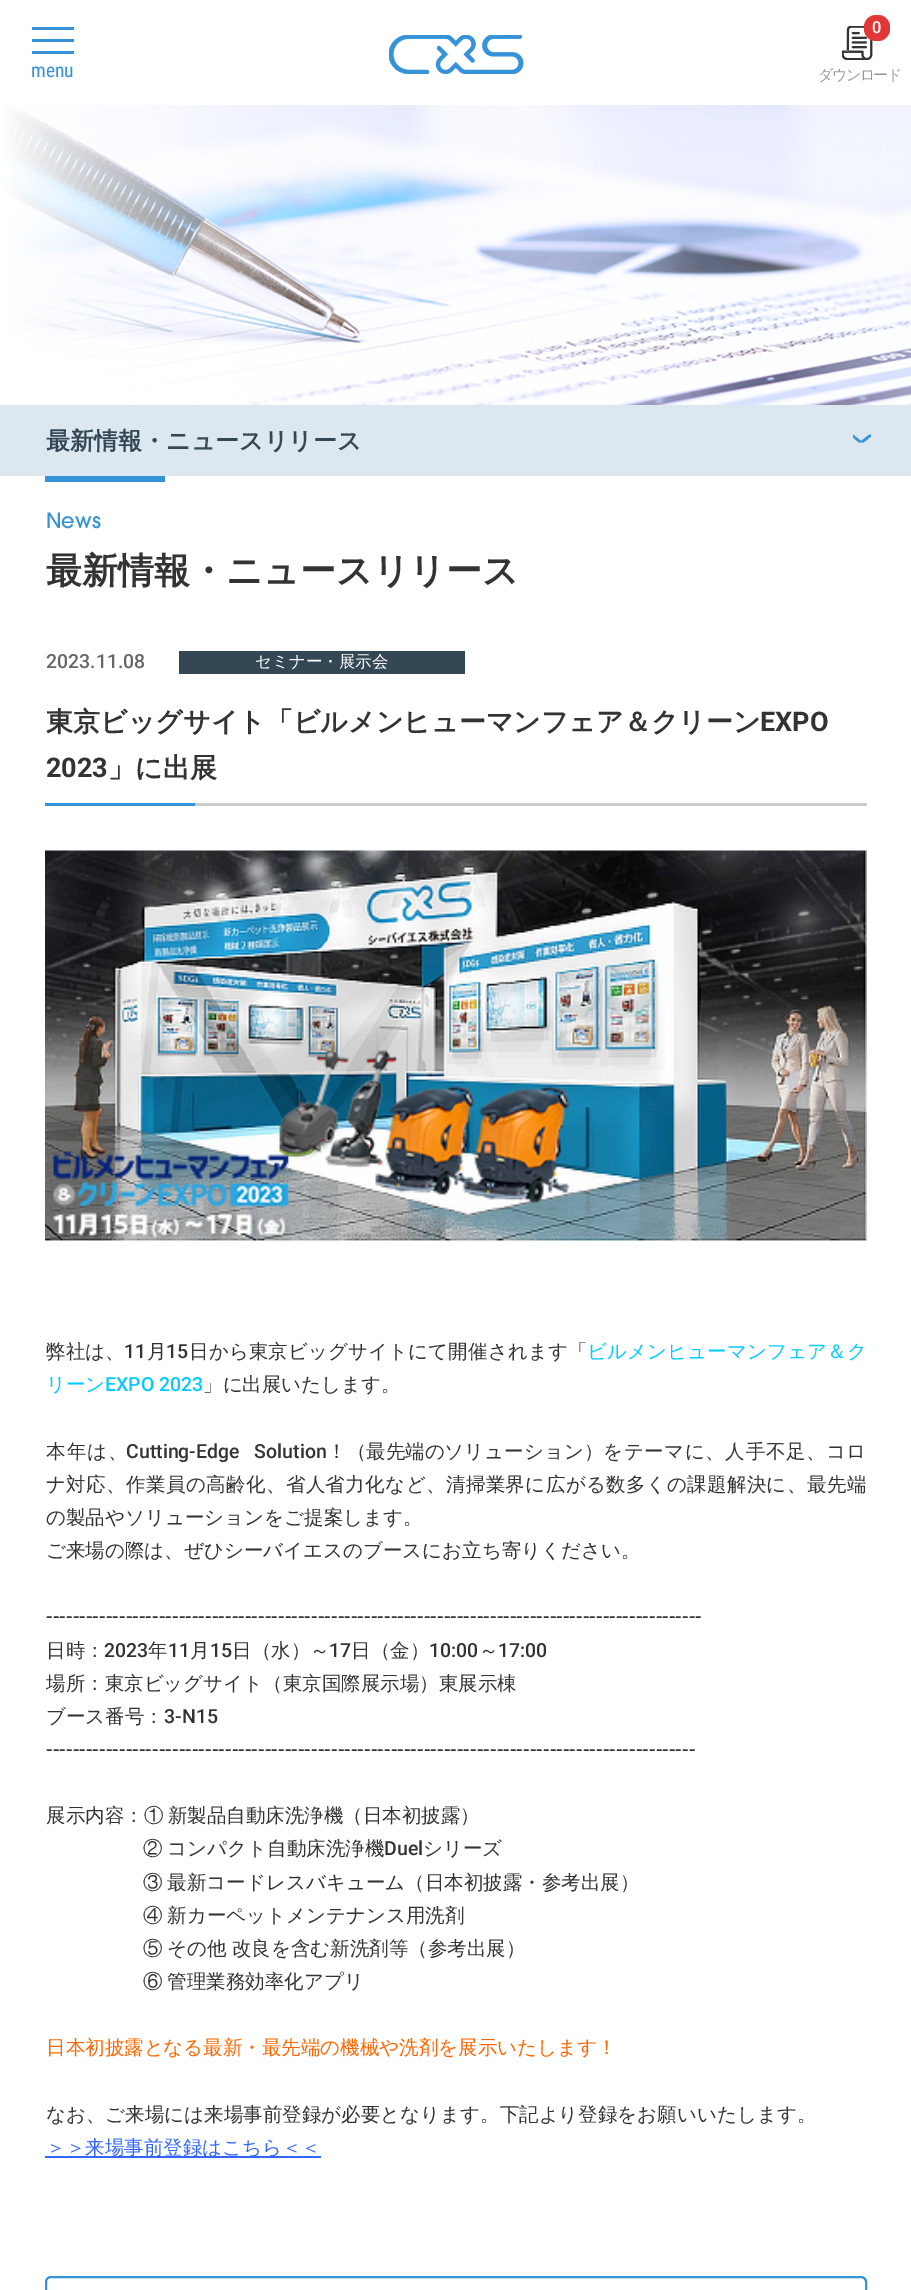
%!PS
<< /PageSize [911 2290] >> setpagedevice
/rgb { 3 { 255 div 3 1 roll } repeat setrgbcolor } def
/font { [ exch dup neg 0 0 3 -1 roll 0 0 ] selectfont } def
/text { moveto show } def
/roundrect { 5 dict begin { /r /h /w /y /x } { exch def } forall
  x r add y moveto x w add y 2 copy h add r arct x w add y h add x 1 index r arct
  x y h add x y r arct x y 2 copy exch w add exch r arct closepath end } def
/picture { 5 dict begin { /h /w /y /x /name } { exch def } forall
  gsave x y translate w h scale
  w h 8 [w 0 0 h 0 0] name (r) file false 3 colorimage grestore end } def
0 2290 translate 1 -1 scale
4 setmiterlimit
255 255 255 rgb
0 0 911 2290 rectfill
54 147 215 rgb
32 27 42 3 rectfill
32 39 42 3 rectfill
32 51 42 3 rectfill
(img_01.rgb) 389 35 135 39 picture
(img_02.rgb) 842 26 31 34 picture
226 55 55 rgb
864 15 26 26 12 roundrect fill
(img_03.rgb) 0 105 911 300 picture
221 231 239 rgb
0 405 911 71 rectfill
54 147 215 rgb
869.5 434.5 moveto -8.5 6.5 rlineto -8 -6.5 rlineto 0 3 rlineto 6 5 rlineto 4.5 0 rlineto 7.5 -6 rlineto 0 -2 rlineto closepath fill
45 476 120 6 rectfill
52 71 84 rgb
179 651 286 23 rectfill
54 147 215 rgb
45 803 150 3 rectfill
204 204 204 rgb
195 803 672 3 rectfill
(img_04.rgb) 45 850 822 392 picture
51 102 255 rgb
45 2156 276 2 rectfill
54 147 215 rgb
2 setlinewidth
46 2277 820 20 5 roundrect stroke
/RobotoCondensed-Regular 19.5 font
(menu) 31 77 text
/Roboto-Medium 16.5 font
255 255 255 rgb
(0) 872 33 text
/WenQuanYiZenHei-Medium 15 font
153 153 153 rgb
818 80 moveto -1.5 0 (ダウンロード) ashow
/WenQuanYiZenHei-Bold 24 font
52 71 84 rgb
(最新情報・ニュースリリース) 46 449 text
/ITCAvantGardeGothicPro-Medium 21 font
54 147 215 rgb
(News) 46 528 text
/WenQuanYiZenHei-Bold 36 font
51 51 51 rgb
(最新情報・ニュースリリース) 46 583 text
/Roboto-Medium 19.5 font
102 102 102 rgb
(2023.11.08) 46 668 text
/WenQuanYiZenHei-Medium 16.5 font
255 255 255 rgb
(セミナー・展示会) 255 667 text
/WenQuanYiZenHei-Bold 27 font
51 51 51 rgb
(東京ビッグサイト「ビルメンヒューマンフェア＆クリーン) 46 731 text
/Roboto-Bold 27 font
(EXPO) 760 731 text
(2023) 46 777 text
/WenQuanYiZenHei-Bold 27 font
(」に出展) 108 777 text
/WenQuanYiZenHei-Medium 19.5 font
46 1358 moveto 0.1 0 (弊社は、) ashow
/Roboto-Medium 19.5 font
124 1358 moveto 0.1 0 (11) ashow
/WenQuanYiZenHei-Medium 19.5 font
147 1358 moveto 0.1 0 (月) ashow
/Roboto-Medium 19.5 font
166 1358 moveto 0.1 0 (15) ashow
/WenQuanYiZenHei-Medium 19.5 font
189 1358 moveto 0.1 0 (日から東京ビッグサイトにて開催されます「) ashow
0 204 255 rgb
587 1358 moveto 0.1 0 (ビルメンヒューマンフェア＆ク) ashow
(リーン) 46 1391 text
/Roboto-Medium 19.5 font
(EXPO 2023) 105 1391 text
/WenQuanYiZenHei-Medium 19.5 font
51 51 51 rgb
(」に出展いたします。) 203 1391 text
46 1458 moveto 1 0 (本年は、) ashow
/Roboto-Medium 19.5 font
126 1458 moveto 10 0 32 (Cutting-Edge Solution) widthshow
/WenQuanYiZenHei-Medium 19.5 font
(！（最先端のソリューション）) 327 1458 text
603 1458 moveto 0.6 0 (をテーマに、人手不足、コロ) ashow
46 1491 moveto 0.4 0 (ナ対応、作業員の高齢化、省人省力化など、清掃業界に広がる数多くの課題解決に、最先端) ashow
(の製品やソリューションをご提案します。) 46 1524 text
(ご来場の際は、ぜひシーバイエスのブースにお立ち寄りください。) 46 1557 text
/Roboto-Medium 19.5 font
(---------------------------------------------------------------------------------------------------) 46 1623 text
/WenQuanYiZenHei-Medium 19.5 font
(日時：) 46 1657 text
/Roboto-Medium 19.5 font
(2023) 104 1657 text
/WenQuanYiZenHei-Medium 19.5 font
(年) 148 1657 text
/Roboto-Medium 19.5 font
(11) 168 1657 text
/WenQuanYiZenHei-Medium 19.5 font
(月) 190 1657 text
/Roboto-Medium 19.5 font
(15) 210 1657 text
/WenQuanYiZenHei-Medium 19.5 font
(日（水）～) 232 1657 text
/Roboto-Medium 19.5 font
(17) 329 1657 text
/WenQuanYiZenHei-Medium 19.5 font
(日（金）) 351 1657 text
/Roboto-Medium 19.5 font
(10:00) 429 1657 text
/WenQuanYiZenHei-Medium 19.5 font
(～) 479 1657 text
/Roboto-Medium 19.5 font
(17:00) 498 1657 text
/WenQuanYiZenHei-Medium 19.5 font
(場所：東京ビッグサイト（東京国際展示場）東展示棟) 46 1690 text
(ブース番号：) 46 1723 text
/Roboto-Medium 19.5 font
(3-N15) 164 1723 text
(--------------------------------------------------------------------------------------------------) 46 1756 text
/WenQuanYiZenHei-Medium 19.5 font
46 1822 moveto -1 0 32 (展示内容：① 新製品自動床洗浄機（日本初披露）) widthshow
143 1855 moveto -1 0 32 (② コンパクト自動床洗浄機) widthshow
/Roboto-Medium 19.5 font
(Duel) 384 1855 text
/WenQuanYiZenHei-Medium 19.5 font
(シリーズ) 423 1855 text
143 1889 moveto -1 0 32 (③ 最新コードレスバキューム（日本初披露・参考出展）) widthshow
143 1922 moveto -1 0 32 (④ 新カーペットメンテナンス用洗剤) widthshow
143 1955 moveto -1 0 32 (⑤ その他 改良を含む新洗剤等（参考出展）) widthshow
143 1988 moveto -1 0 32 (⑥ 管理業務効率化アプリ) widthshow
255 102 0 rgb
(日本初披露となる最新・最先端の機械や洗剤を展示いたします！) 46 2054 text
51 51 51 rgb
(なお、ご来場には来場事前登録が必要となります。下記より登録をお願いいたします。) 46 2121 text
51 102 255 rgb
(＞＞来場事前登録はこちら＜＜) 46 2154 text
showpage
